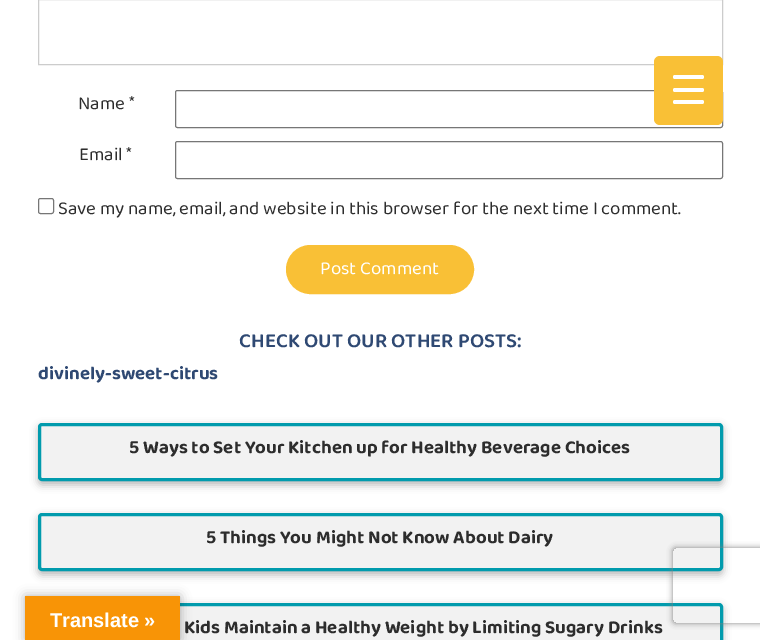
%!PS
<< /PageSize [760 640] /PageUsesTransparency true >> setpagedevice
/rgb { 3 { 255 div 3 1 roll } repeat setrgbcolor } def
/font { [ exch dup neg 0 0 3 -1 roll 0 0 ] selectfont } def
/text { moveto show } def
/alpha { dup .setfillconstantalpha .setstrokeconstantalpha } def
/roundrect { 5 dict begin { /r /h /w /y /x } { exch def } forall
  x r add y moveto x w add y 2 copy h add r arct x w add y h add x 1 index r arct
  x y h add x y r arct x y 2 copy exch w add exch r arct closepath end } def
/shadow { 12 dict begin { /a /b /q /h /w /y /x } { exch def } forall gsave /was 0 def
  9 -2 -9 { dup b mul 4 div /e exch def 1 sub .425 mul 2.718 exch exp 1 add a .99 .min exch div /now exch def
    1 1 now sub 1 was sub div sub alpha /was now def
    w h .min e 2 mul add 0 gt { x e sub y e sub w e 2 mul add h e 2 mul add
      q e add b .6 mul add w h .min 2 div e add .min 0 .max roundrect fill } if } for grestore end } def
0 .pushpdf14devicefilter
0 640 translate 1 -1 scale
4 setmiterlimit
255 255 255 rgb
0 0 760 640 rectfill
204 204 204 rgb
38.5 -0.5 684 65 rectstroke
118 118 118 rgb
175.5 90.5 547 37 2 roundrect stroke
175.5 141.5 547 37 2 roundrect stroke
38.5 198.5 15 15 2 roundrect stroke
249 192 54 rgb
287.5 246.5 185 46 23 roundrect gsave fill grestore
3 setlinewidth
stroke
185 185 185 rgb
38 426 685 59 4 4 1 shadow
242 242 242 rgb
39.5 424.5 682 55 2.5 roundrect gsave fill grestore
1 155 173 rgb
stroke
185 185 185 rgb
38 516 685 59 4 4 1 shadow
242 242 242 rgb
39.5 514.5 682 55 2.5 roundrect gsave fill grestore
1 155 173 rgb
stroke
185 185 185 rgb
38 606 685 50 4 4 1 shadow
242 242 242 rgb
39.5 604.5 682 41 2.5 roundrect gsave fill grestore
1 155 173 rgb
stroke
249 192 54 rgb
654 56 69 69 6 roundrect fill
255 255 255 rgb
673 88 31 4 2 roundrect fill
673 75 31 4 2 roundrect fill
673 100 31 4 2 roundrect fill
0 0 0 rgb
25 596 155 44 0 5.5 0.3 shadow
248 148 6 rgb
25 596 155 44 rectfill
gsave
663 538 moveto 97 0 rlineto 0 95 rlineto -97 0 rlineto closepath 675.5 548 moveto 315 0 rlineto 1.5 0 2.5 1 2.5 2.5 rcurveto 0 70 rlineto 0 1.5 -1 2.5 -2.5 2.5 rcurveto -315 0 rlineto -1.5 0 -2.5 -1 -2.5 -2.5 rcurveto 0 -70 rlineto 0 -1.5 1 -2.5 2.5 -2.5 rcurveto closepath eoclip newpath
128 128 128 rgb
673 548 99 75 2.5 3 1 shadow
grestore
/BalooBhaina2-Regular 18.75 font
45 45 45 rgb
(Name *) 78 109 text
(Email *) 79 160 text
(Save my name, email, and website in this browser for the next time I comment.) 58 214 text
255 255 255 rgb
(Post Comment) 320 274 text
/BalooBhaina2-SemiBold 20.6 font
47 73 115 rgb
(CHECK OUT OUR OTHER POSTS:) 239 347 text
/BalooBhaina2-Bold 18.75 font
(divinely-sweet-citrus) 38 379 text
45 45 45 rgb
(5 Ways to Set Your Kitchen up for Healthy Beverage Choices) 129 453 text
(5 Things You Might Not Know About Dairy) 206 543 text
(Kids Maintain a Healthy Weight by Limiting Sugary Drinks) 184 633 text
/LiberationSans-Bold 20 font
255 255 255 rgb
(Translate ») 50 627 text
.poppdf14devicefilter showpage
